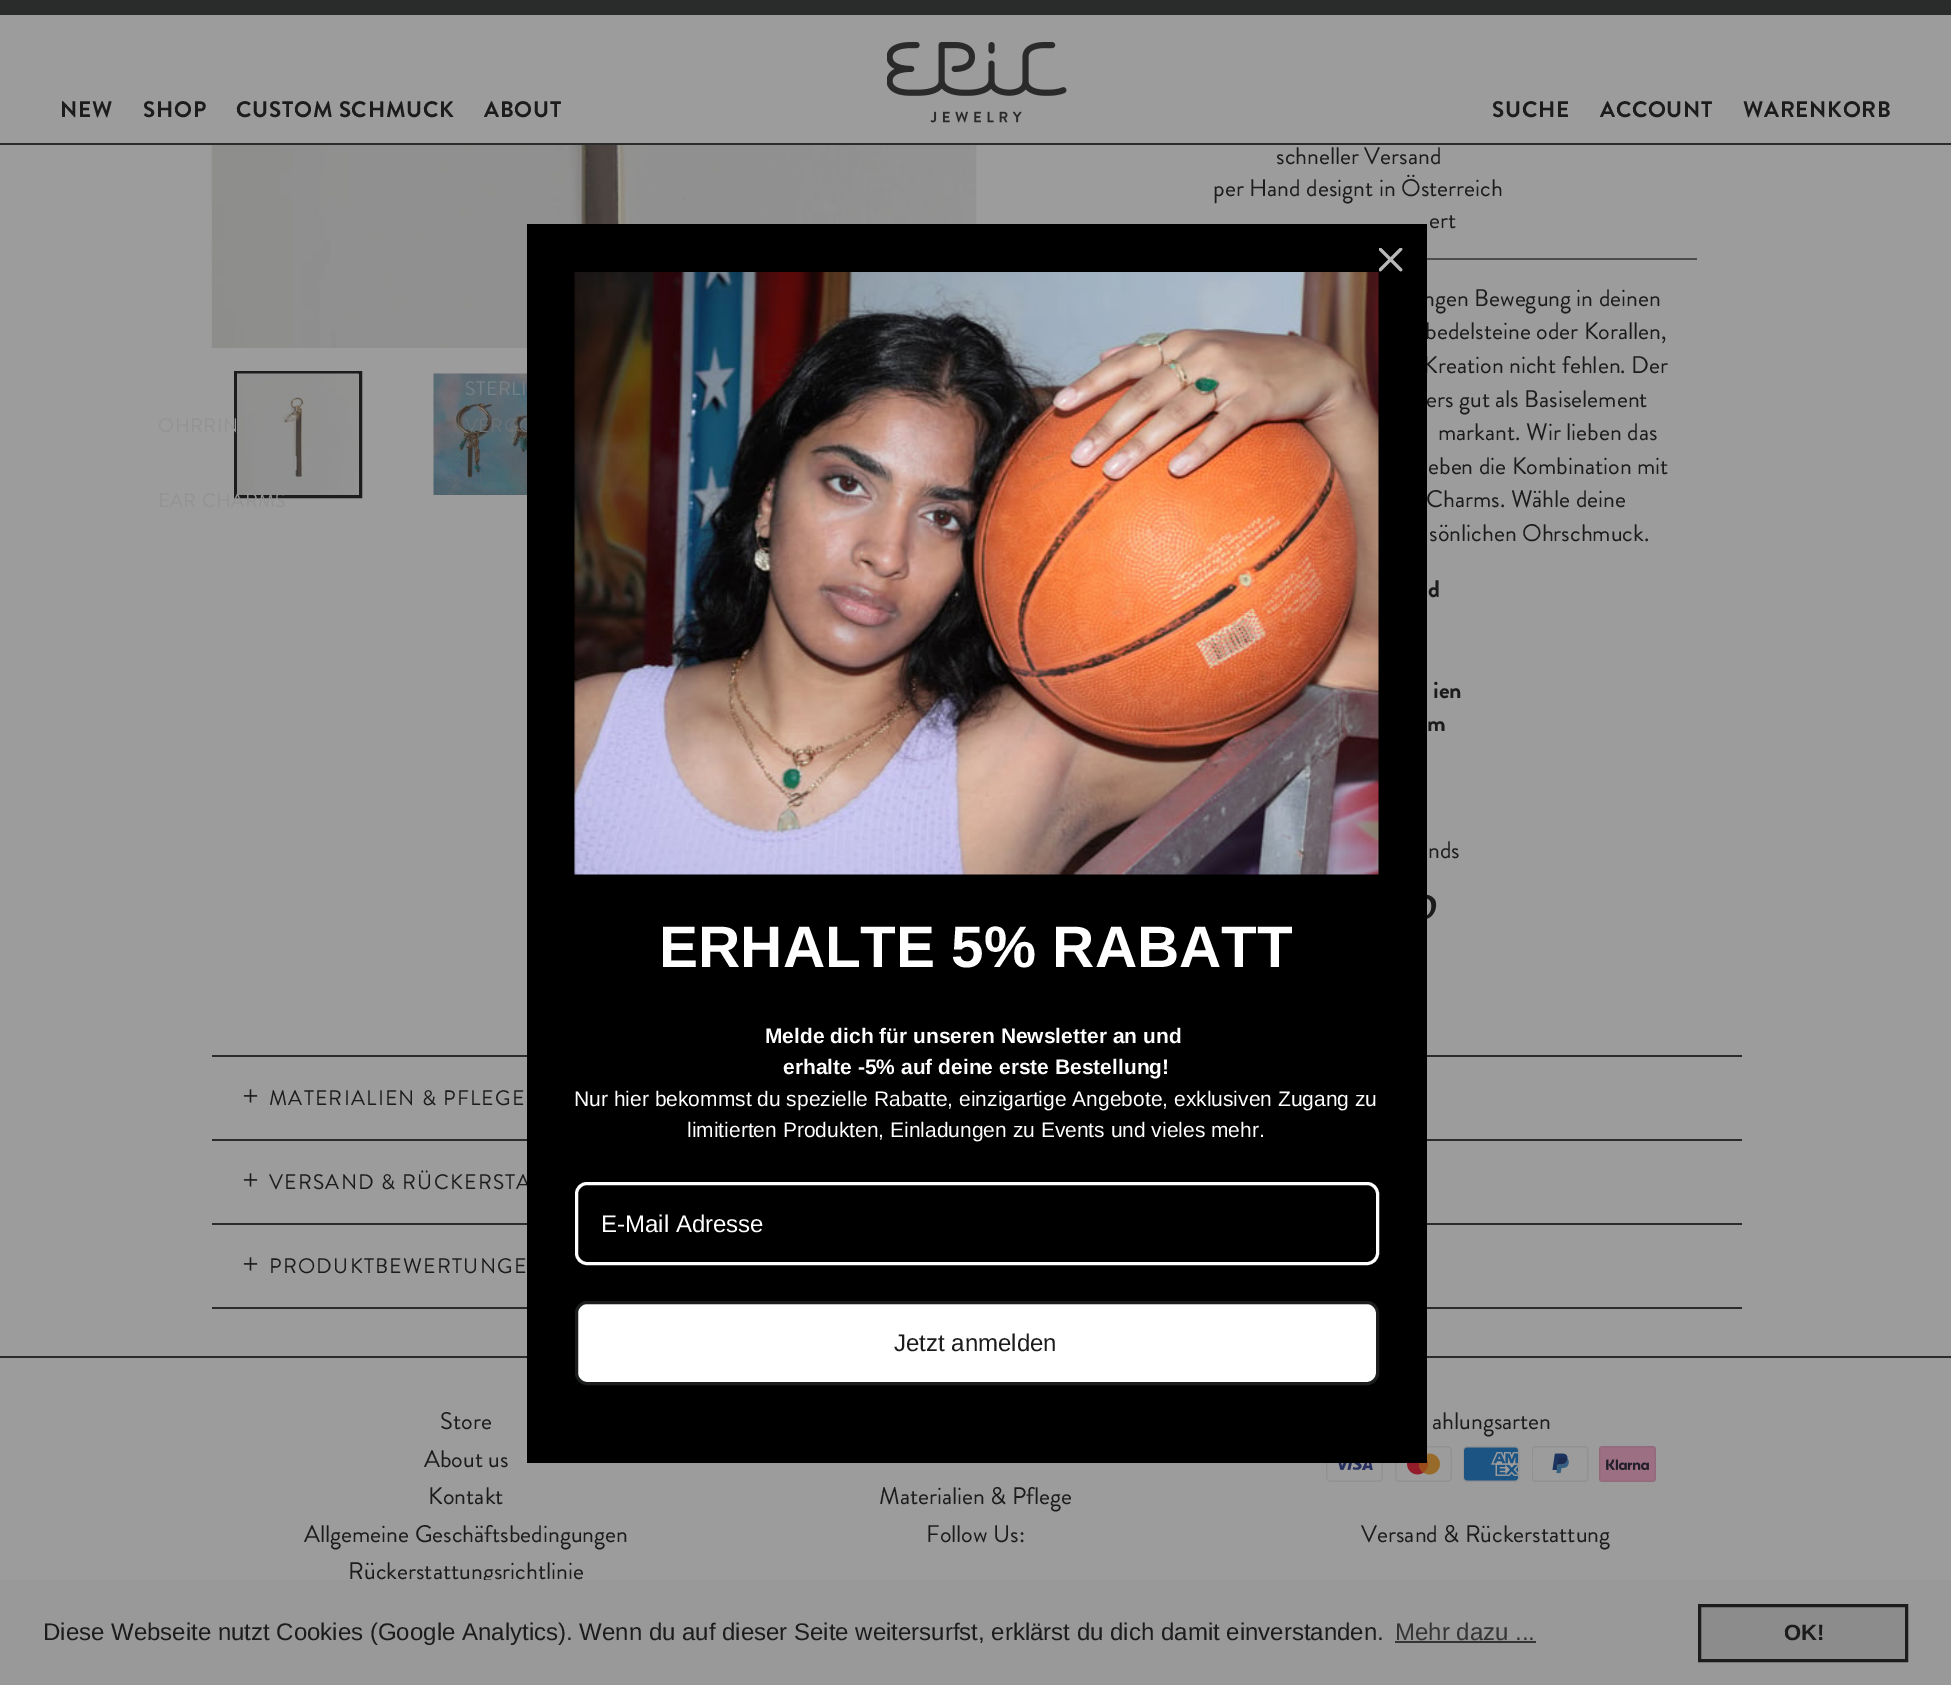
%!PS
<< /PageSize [1951 1685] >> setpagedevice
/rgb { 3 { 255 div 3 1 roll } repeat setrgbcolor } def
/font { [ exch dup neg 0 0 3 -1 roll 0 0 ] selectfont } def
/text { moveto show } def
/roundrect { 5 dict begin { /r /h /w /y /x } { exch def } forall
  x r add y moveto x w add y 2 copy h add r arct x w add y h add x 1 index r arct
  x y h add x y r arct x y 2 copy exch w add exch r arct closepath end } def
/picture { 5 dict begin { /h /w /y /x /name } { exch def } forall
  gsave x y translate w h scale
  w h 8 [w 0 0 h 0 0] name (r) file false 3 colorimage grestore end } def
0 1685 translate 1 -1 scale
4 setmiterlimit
156 156 156 rgb
0 0 1951 1685 rectfill
42 43 43 rgb
0 143 1951 2 rectfill
0 0 1951 15 rectfill
(img_01.rgb) 887 42 180 81 picture
152 152 152 rgb
976 145 1 79 rectfill
(img_02.rgb) 211 145 765 203 picture
28 28 28 rgb
3 setlinewidth
235.5 372.5 125 124 rectstroke
(img_03.rgb) 237 373 122 122 picture
(img_04.rgb) 433 373 94 122 picture
76 76 76 rgb
1427 258 270 2 rectfill
(img_05.rgb) 1427 894 10 25 picture
42 43 43 rgb
212 1055 1530 2 rectfill
212 1139 1530 2 rectfill
(img_06.rgb) 243 1089 15 14 picture
212 1223 1530 2 rectfill
(img_06.rgb) 243 1173 15 14 picture
212 1307 1530 2 rectfill
(img_06.rgb) 243 1257 15 14 picture
0 1356 1951 2 rectfill
(img_07.rgb) 1326 1463 57 19 picture
(img_08.rgb) 1395 1446 57 36 picture
(img_09.rgb) 1463 1446 57 36 picture
(img_10.rgb) 1532 1446 57 36 picture
(img_11.rgb) 1599 1446 57 36 picture
/BrandonGrotesque-Bold 22.5 font
28 28 28 rgb
60 117 moveto 0.7 0 (NEW) ashow
143 117 moveto 0.7 0 (SHOP) ashow
/BrandonGrotesque-Regular 19.5 font
117 128 134 rgb
465 395 moveto 0.5 0 (STERLI) ashow
105 113 117 rgb
465 432 moveto 0.5 0 (VERGO) ashow
147 147 147 rgb
158 432 moveto 0.5 0 (OHRRIN) ashow
293 470 moveto 0.5 0 (I) ashow
158 507 moveto 0.5 0 (EAR CHARMS) ashow
/BrandonGrotesque-Bold 22.5 font
28 28 28 rgb
236 117 moveto 0.7 0 (CUSTOM SCHMUCK) ashow
484 117 moveto 0.7 0 (ABOUT) ashow
1492 117 moveto 0.7 0 (SUCHE) ashow
1600 117 moveto 0.7 0 (ACCOUNT) ashow
1743 117 moveto 0.7 0 (WARENKORB) ashow
/BrandonGrotesque-Regular 24 font
(schneller Versand) 1276 164 text
(per Hand designt in Österreich) 1213 196 text
(ert) 1429 228 text
(ngen Bewegung in deinen) 1423 306 text
(bedelsteine oder Korallen,) 1425 339 text
(Kreation nicht fehlen. Der) 1423 373 text
(ers gut als Basiselement) 1426 407 text
(markant. Wir lieben das) 1438 440 text
(eben die Kombination mit) 1428 474 text
(Charms. Wähle deine) 1426 507 text
(sönlichen Ohrschmuck.) 1429 541 text
/BrandonGrotesque-Bold 24 font
(d) 1428 597 text
(ien) 1433 698 text
(m) 1427 731 text
/BrandonGrotesque-Regular 24 font
(nds) 1428 858 text
/BrandonGrotesque-Regular 21 font
269 1105 moveto 1.25 0 (MATERIALIEN & PFLEGE) ashow
269 1189 moveto 1.25 0 (VERSAND & RÜCKERSTA) ashow
269 1273 moveto 1.25 0 (PRODUKTBEWERTUNGE) ashow
/BrandonGrotesque-Regular 24 font
(Store) 440 1429 text
(About us) 424 1467 text
(Kontakt) 428 1504 text
(Allgemeine Geschäftsbedingungen) 304 1542 text
(Rückerstattungsrichtlinie) 348 1579 text
(Materialien & Pflege) 879 1504 text
(Follow Us:) 926 1542 text
(ahlungsarten) 1432 1429 text
(Versand & Rückerstattung) 1361 1542 text
0 0 0 rgb
527 224 900 1239 rectfill
(img_12.rgb) 1379 248 24 24 picture
(img_13.rgb) 574 272 805 603 picture
/LiberationSans-Bold 58.5 font
255 255 255 rgb
(ERHALTE 5% RABATT) 659 967 text
/LiberationSans-Bold 21 font
(Melde dich für unseren Newsletter an und) 765 1043 text
(erhalte -5% auf deine erste Bestellung!) 783 1074 text
/LiberationSans-Regular 21 font
(Nur hier bekommst du spezielle Rabatte, einzigartige Angebote, exklusiven Zugang zu) 574 1106 text
(limitierten Produkten, Einladungen zu Events und vieles mehr.) 687 1137 text
576.5 1183.5 801 80 10.5 roundrect stroke
/LiberationSans-Regular 24 font
(E-Mail Adresse) 601 1232 text
576.5 1302.5 801 81 10.5 roundrect gsave fill grestore
28 30 29 rgb
stroke
28 28 28 rgb
(Jetzt anmelden) 894 1351 text
153 153 153 rgb
0 1580 1951 105 rectfill
28 28 28 rgb
(Diese Webseite nutzt Cookies \(Google Analytics\). Wenn du auf dieser Seite weitersurfst, erklärst du dich damit einverstanden.) 43 1640 text
53 53 53 rgb
(Mehr dazu ...) 1395 1640 text
1395 1641 141 2 rectfill
140 140 140 rgb
1699.5 1605.5 moveto 207 0 rlineto 0 55 rlineto -207 0 rlineto closepath gsave fill grestore
28 28 28 rgb
stroke
/LiberationSans-Bold 22 font
(OK!) 1784 1640 text
showpage
